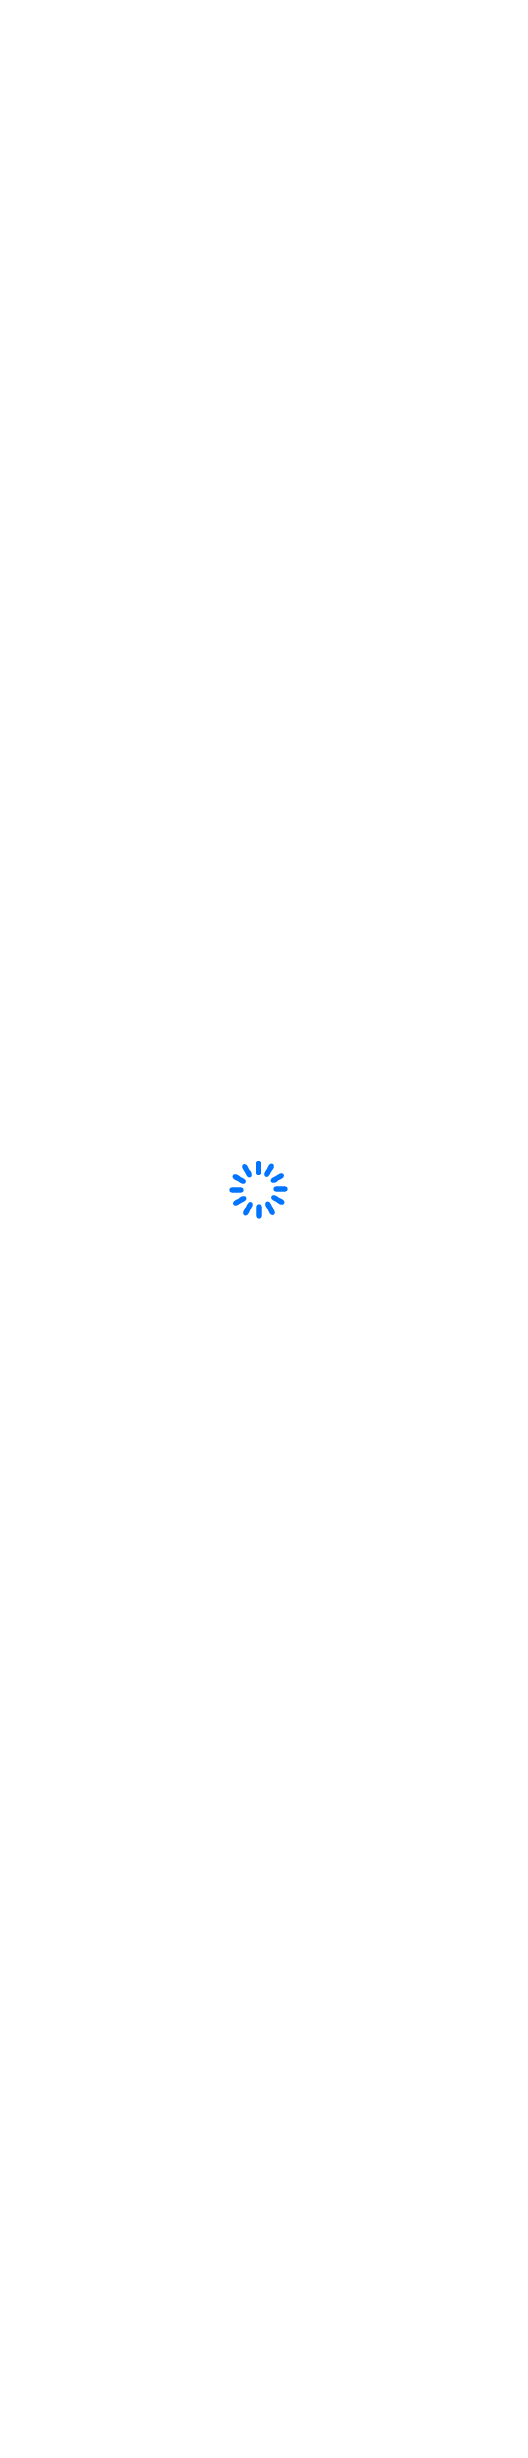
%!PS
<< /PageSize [528 2458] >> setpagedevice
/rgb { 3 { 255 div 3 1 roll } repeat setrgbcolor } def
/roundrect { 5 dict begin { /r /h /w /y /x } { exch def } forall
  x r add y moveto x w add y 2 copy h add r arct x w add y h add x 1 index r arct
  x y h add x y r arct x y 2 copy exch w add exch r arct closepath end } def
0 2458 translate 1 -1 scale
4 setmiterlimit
255 255 255 rgb
0 0 528 2458 rectfill
0 116 255 rgb
272.5 1164 moveto 3 2 0 5.5 -1.5 7.5 rcurveto -1 1.5 -2.5 6.5 -5.5 5 rcurveto -3 -2 0.5 -6 1.5 -7.5 rcurveto 1 -2 2.5 -6.5 5.5 -5 rcurveto closepath fill
283.5 1174.5 moveto 1.5 3 -3 4.5 -5 5.5 rcurveto -1.5 1.5 -5.5 4.5 -7.5 1.5 rcurveto -1.5 -3 3.5 -4.5 5 -5.5 rcurveto 2 -1 5.5 -4.5 7.5 -1.5 rcurveto closepath 287.5 1189 moveto 0 3.5 -5 2.5 -7 2.5 rcurveto -2 0 -7 1 -7 -2.5 rcurveto 0 -3.5 5 -2.5 7 -2.5 rcurveto 2 0 7 -1 7 2.5 rcurveto closepath 284 1203.5 moveto -2 3 -5.5 0 -7.5 -1.5 rcurveto -1.5 -1 -6.5 -2.5 -5 -5.5 rcurveto 2 -3 6 0.5 7.5 1.5 rcurveto 2 1 6.5 2.5 5 5.5 rcurveto closepath fill
273.5 1214.5 moveto -3 1.5 -4.5 -3 -5.5 -5 rcurveto -1.5 -1.5 -4.5 -5.5 -1.5 -7.5 rcurveto 3 -1.5 4.5 3.5 5.5 5 rcurveto 1 2 4.5 5.5 1.5 7.5 rcurveto closepath 259 1218.5 moveto -3.5 0 -2.5 -5 -2.5 -7 rcurveto 0 -2 -1 -7 2.5 -7 rcurveto 3.5 0 2.5 5 2.5 7 rcurveto 0 2 1 7 -2.5 7 rcurveto closepath 244.5 1215 moveto -3 -2 0 -5.5 1.5 -7.5 rcurveto 1 -1.5 2.5 -6.5 5.5 -5 rcurveto 3 2 -0.5 6 -1.5 7.5 rcurveto -1 2 -2.5 6.5 -5.5 5 rcurveto closepath fill
233.5 1204.5 moveto -1.5 -3 3 -4.5 5 -5.5 rcurveto 1.5 -1.5 5.5 -4.5 7.5 -1.5 rcurveto 1.5 3 -3.5 4.5 -5 5.5 rcurveto -2 1 -5.5 4.5 -7.5 1.5 rcurveto closepath 229.5 1190 moveto 0 -3.5 5 -2.5 7 -2.5 rcurveto 2 0 7 -1 7 2.5 rcurveto 0 3.5 -5 2.5 -7 2.5 rcurveto -2 0 -7 1 -7 -2.5 rcurveto closepath 233 1175.5 moveto 2 -3 5.5 0 7.5 1.5 rcurveto 1.5 1 6.5 2.5 5 5.5 rcurveto -2 3 -6 -0.5 -7.5 -1.5 rcurveto -2 -1 -6.5 -2.5 -5 -5.5 rcurveto closepath fill
243.5 1164.5 moveto 3 -1.5 4.5 3 5.5 5 rcurveto 1.5 1.5 4.5 5.5 1.5 7.5 rcurveto -3 1.5 -4.5 -3.5 -5.5 -5 rcurveto -1 -2 -4.5 -5.5 -1.5 -7.5 rcurveto closepath fill
256 1161 5 14 2.5 roundrect fill
showpage
